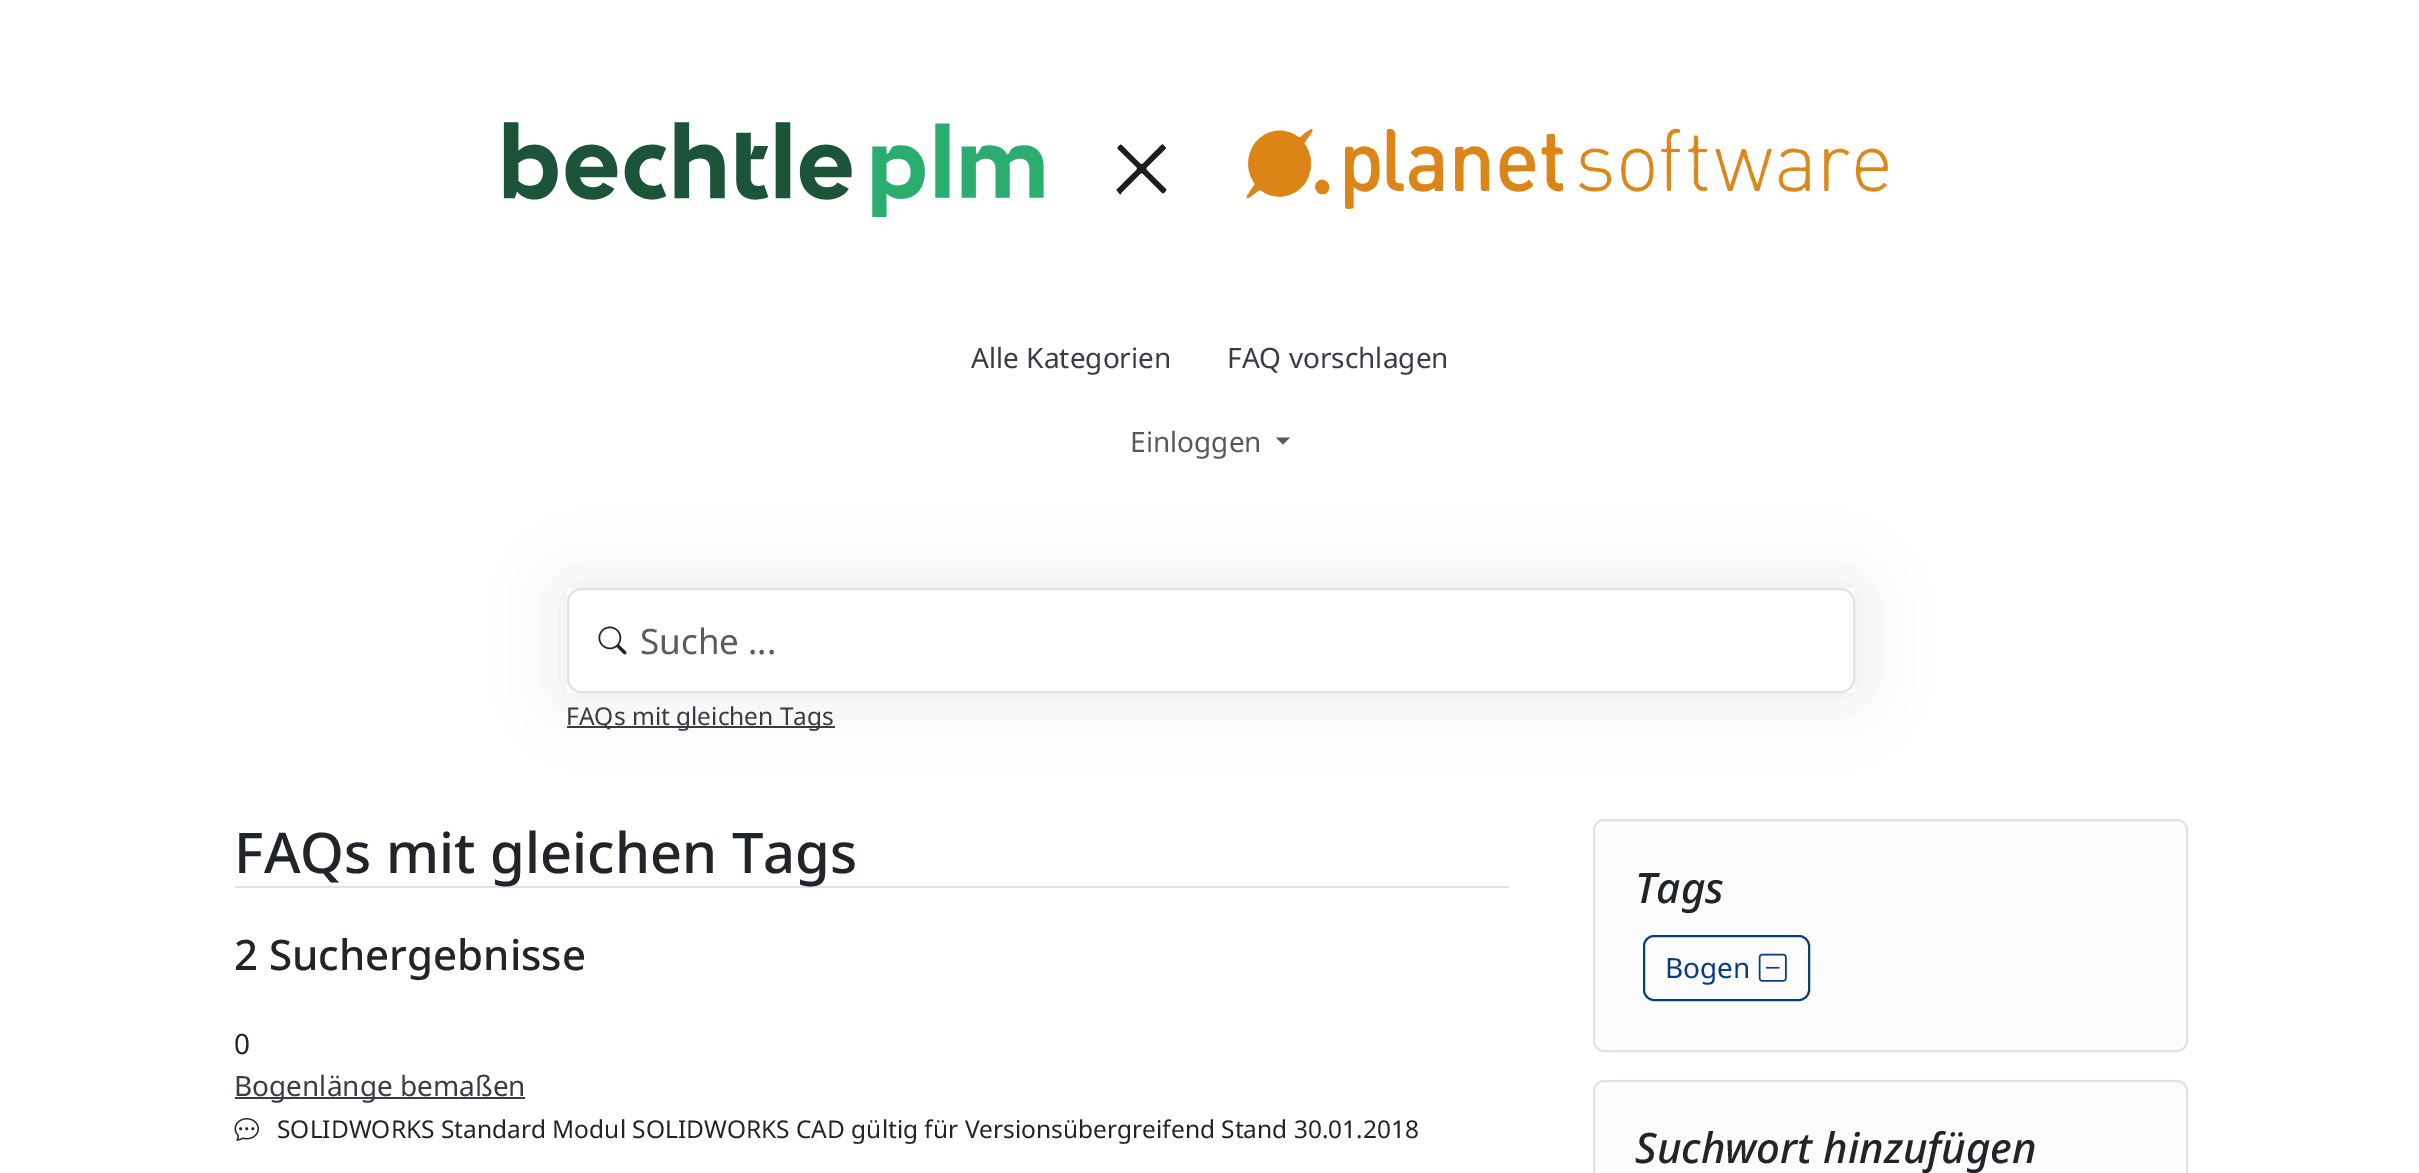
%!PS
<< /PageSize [2419 1173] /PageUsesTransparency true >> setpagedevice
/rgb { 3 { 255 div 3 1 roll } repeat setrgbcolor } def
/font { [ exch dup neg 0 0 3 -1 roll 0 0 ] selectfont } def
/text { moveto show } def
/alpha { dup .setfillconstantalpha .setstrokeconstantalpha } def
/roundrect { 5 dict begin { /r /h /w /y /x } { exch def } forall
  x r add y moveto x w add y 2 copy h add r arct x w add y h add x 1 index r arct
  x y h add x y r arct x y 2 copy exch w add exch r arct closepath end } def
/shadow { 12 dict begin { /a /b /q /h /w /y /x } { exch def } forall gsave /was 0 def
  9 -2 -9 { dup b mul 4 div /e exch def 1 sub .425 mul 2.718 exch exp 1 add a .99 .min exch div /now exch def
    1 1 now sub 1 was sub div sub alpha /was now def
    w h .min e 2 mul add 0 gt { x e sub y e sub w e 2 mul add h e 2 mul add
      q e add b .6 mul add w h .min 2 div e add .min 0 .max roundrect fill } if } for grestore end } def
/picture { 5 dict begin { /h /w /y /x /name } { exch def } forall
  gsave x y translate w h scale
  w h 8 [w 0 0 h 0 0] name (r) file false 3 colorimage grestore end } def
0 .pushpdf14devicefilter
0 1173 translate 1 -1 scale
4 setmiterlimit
255 255 255 rgb
0 0 2419 1173 rectfill
(img_01.rgb) 503 122 1385 95 picture
89 89 89 rgb
1276 437.5 moveto 14 0 rlineto -7 7 rlineto closepath fill
58 59 69 rgb
567 726 268 2 rectfill
gsave
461 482 moveto 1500 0 rlineto 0 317 rlineto -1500 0 rlineto closepath 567 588 moveto 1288 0 rlineto 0 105 rlineto -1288 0 rlineto closepath eoclip newpath
51 51 51 rgb
567 588 1288 105 0 35 0.1 shadow
grestore
222 226 230 rgb
2 setlinewidth
568 589 1286 103 13 roundrect stroke
(img_02.rgb) 598 626 29 29 picture
235 886 1274 2 rectfill
58 59 69 rgb
235 1097 290 2 rectfill
(img_03.rgb) 234 1118 25 23 picture
252 252 253 rgb
1594 820 593 231 10 roundrect gsave fill grestore
222 226 230 rgb
stroke
8 60 131 rgb
1644 936 165 64 10 roundrect stroke
(img_04.rgb) 1758 953 29 29 picture
252 252 253 rgb
1594 1081 593 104 10 roundrect gsave fill grestore
222 226 230 rgb
stroke
/NotoSans-Regular 28 font
58 59 69 rgb
(Alle Kategorien) 971 368 text
(FAQ vorschlagen) 1227 368 text
89 89 89 rgb
(Einloggen) 1130 452 text
/NotoSans-Regular 35 font
89 92 95 rgb
(Suche ...) 640 654 text
/NotoSans-Regular 24.5 font
58 59 69 rgb
(FAQs mit gleichen Tags) 566 725 text
/NotoSans-Medium 56 font
33 37 41 rgb
(FAQs mit gleichen Tags) 234 873 text
/NotoSans-Medium 42 font
(2 Suchergebnisse) 234 970 text
/NotoSans-Regular 28 font
(0) 234 1054 text
58 59 69 rgb
(Bogenlänge bemaßen) 234 1096 text
/NotoSans-Regular 24.5 font
33 37 41 rgb
(SOLIDWORKS Standard Modul SOLIDWORKS CAD gültig für Versionsübergreifend Stand 30.01.2018) 277 1138 text
/NotoSans-MediumItalic 42 font
(Tags) 1635 903 text
/NotoSans-Regular 28 font
8 60 131 rgb
(Bogen) 1665 978 text
/NotoSans-MediumItalic 42 font
33 37 41 rgb
(Suchwort hinzufügen) 1635 1163 text
.poppdf14devicefilter showpage
